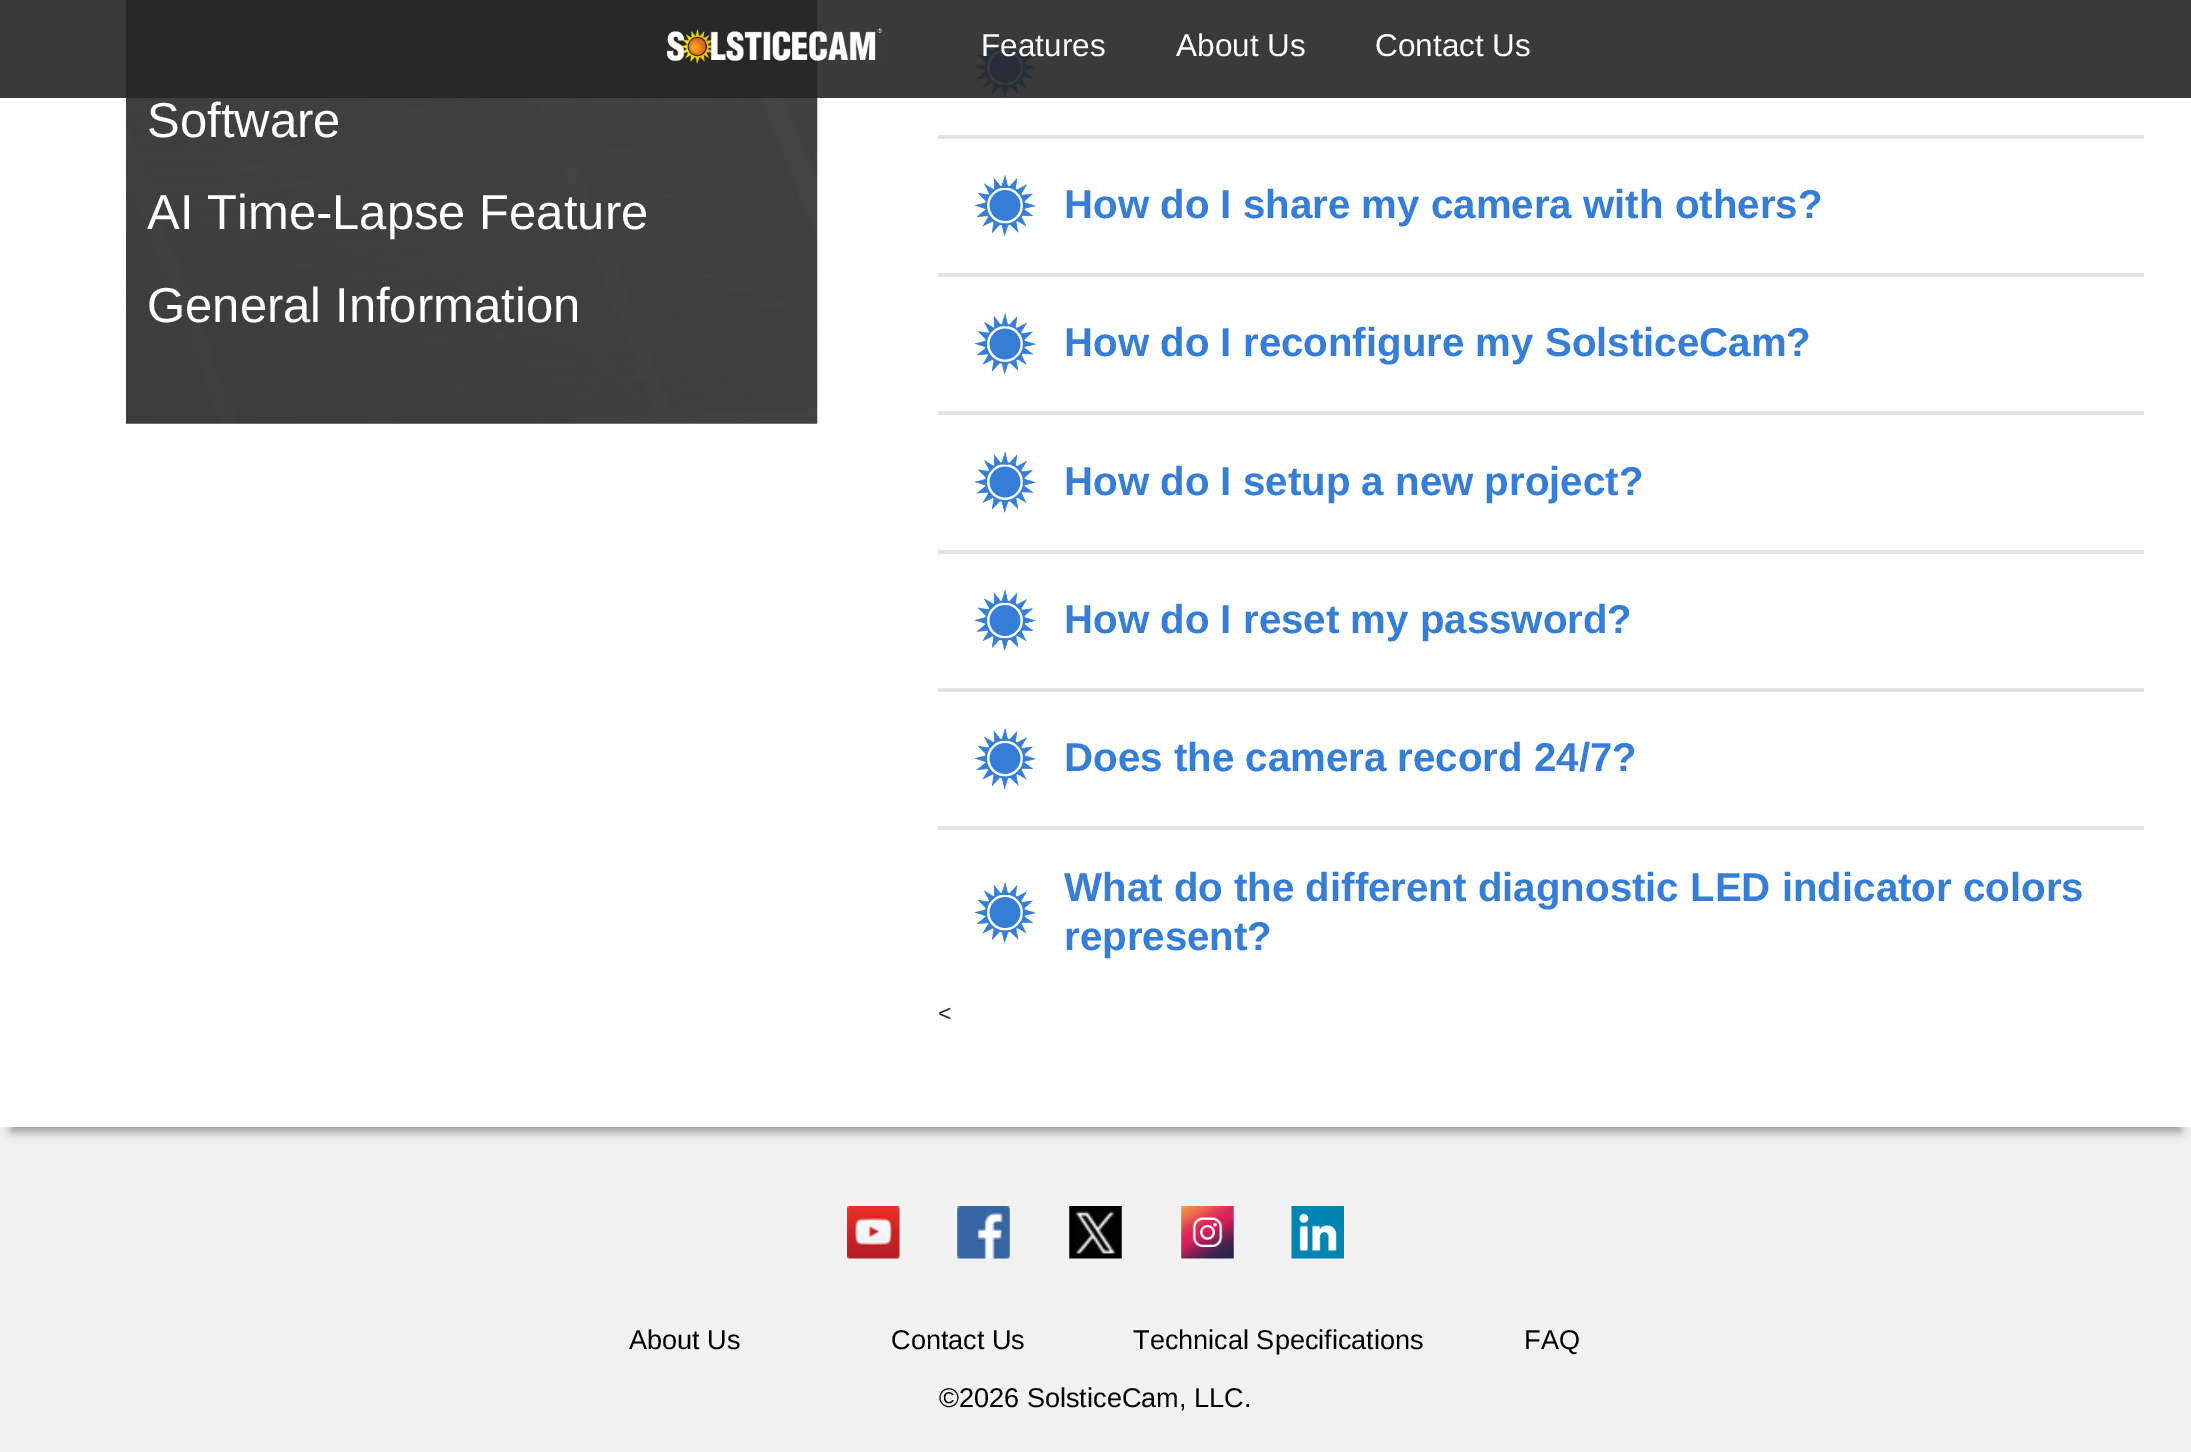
%!PS
<< /PageSize [2191 1452] /PageUsesTransparency true >> setpagedevice
/rgb { 3 { 255 div 3 1 roll } repeat setrgbcolor } def
/font { [ exch dup neg 0 0 3 -1 roll 0 0 ] selectfont } def
/text { moveto show } def
/alpha { dup .setfillconstantalpha .setstrokeconstantalpha } def
/roundrect { 5 dict begin { /r /h /w /y /x } { exch def } forall
  x r add y moveto x w add y 2 copy h add r arct x w add y h add x 1 index r arct
  x y h add x y r arct x y 2 copy exch w add exch r arct closepath end } def
/shadow { 12 dict begin { /a /b /q /h /w /y /x } { exch def } forall gsave /was 0 def
  9 -2 -9 { dup b mul 4 div /e exch def 1 sub .425 mul 2.718 exch exp 1 add a .99 .min exch div /now exch def
    1 1 now sub 1 was sub div sub alpha /was now def
    w h .min e 2 mul add 0 gt { x e sub y e sub w e 2 mul add h e 2 mul add
      q e add b .6 mul add w h .min 2 div e add .min 0 .max roundrect fill } if } for grestore end } def
/picture { 5 dict begin { /h /w /y /x /name } { exch def } forall
  gsave x y translate w h scale
  w h 8 [w 0 0 h 0 0] name (r) file false 3 colorimage grestore end } def
0 .pushpdf14devicefilter
0 1452 translate 1 -1 scale
4 setmiterlimit
241 241 241 rgb
0 0 2191 1452 rectfill
153 153 153 rgb
11 -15 2170 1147 0 5 1 shadow
255 255 255 rgb
0 0 2191 1127 rectfill
(img_02.rgb) 126 0 692 424 picture
227 227 227 rgb
938 0 1206 1 rectfill
(img_03.rgb) 974 36 62 63 picture
0.9 alpha
37 37 38 rgb
0 0 2191 98 rectfill
1 alpha
(img_01.rgb) 667 28 215 36 picture
227 227 227 rgb
938 135 1206 4 rectfill
(img_04.rgb) 974 174 62 63 picture
938 273 1206 4 rectfill
(img_05.rgb) 974 313 62 62 picture
938 411 1206 4 rectfill
(img_06.rgb) 974 451 62 62 picture
938 550 1206 4 rectfill
(img_03.rgb) 974 589 62 63 picture
938 688 1206 4 rectfill
(img_04.rgb) 974 727 62 63 picture
938 826 1206 4 rectfill
(img_04.rgb) 974 881 62 63 picture
(img_07.rgb) 847 1206 53 53 picture
(img_08.rgb) 957 1206 53 53 picture
(img_09.rgb) 1069 1206 53 53 picture
(img_10.rgb) 1181 1206 53 53 picture
(img_11.rgb) 1291 1206 53 53 picture
/LiberationSans-Regular 31.5 font
255 255 255 rgb
(Features) 981 56 text
(About Us) 1176 56 text
(Contact Us) 1375 56 text
/LiberationSans-Regular 49 font
(Software) 147 137 text
(AI Time-Lapse Feature) 147 229 text
(General Information) 147 322 text
/LiberationSans-Bold 40.25 font
53 126 216 rgb
(How do I share my camera with others?) 1064 218 text
(How do I reconfigure my SolsticeCam?) 1064 356 text
(How do I setup a new project?) 1064 495 text
(How do I reset my password?) 1064 633 text
(Does the camera record 24/7?) 1064 771 text
(What do the different diagnostic LED indicator colors) 1064 901 text
(represent?) 1064 950 text
/LiberationSans-Regular 23 font
33 37 41 rgb
(<) 938 1021 text
/LiberationSans-Regular 27.1 font
0 0 0 rgb
(About Us) 629 1349 text
(Contact Us) 891 1349 text
(Technical Specifications) 1133 1349 text
(FAQ) 1524 1349 text
(©2026 SolsticeCam, LLC.) 939 1407 text
.poppdf14devicefilter showpage
